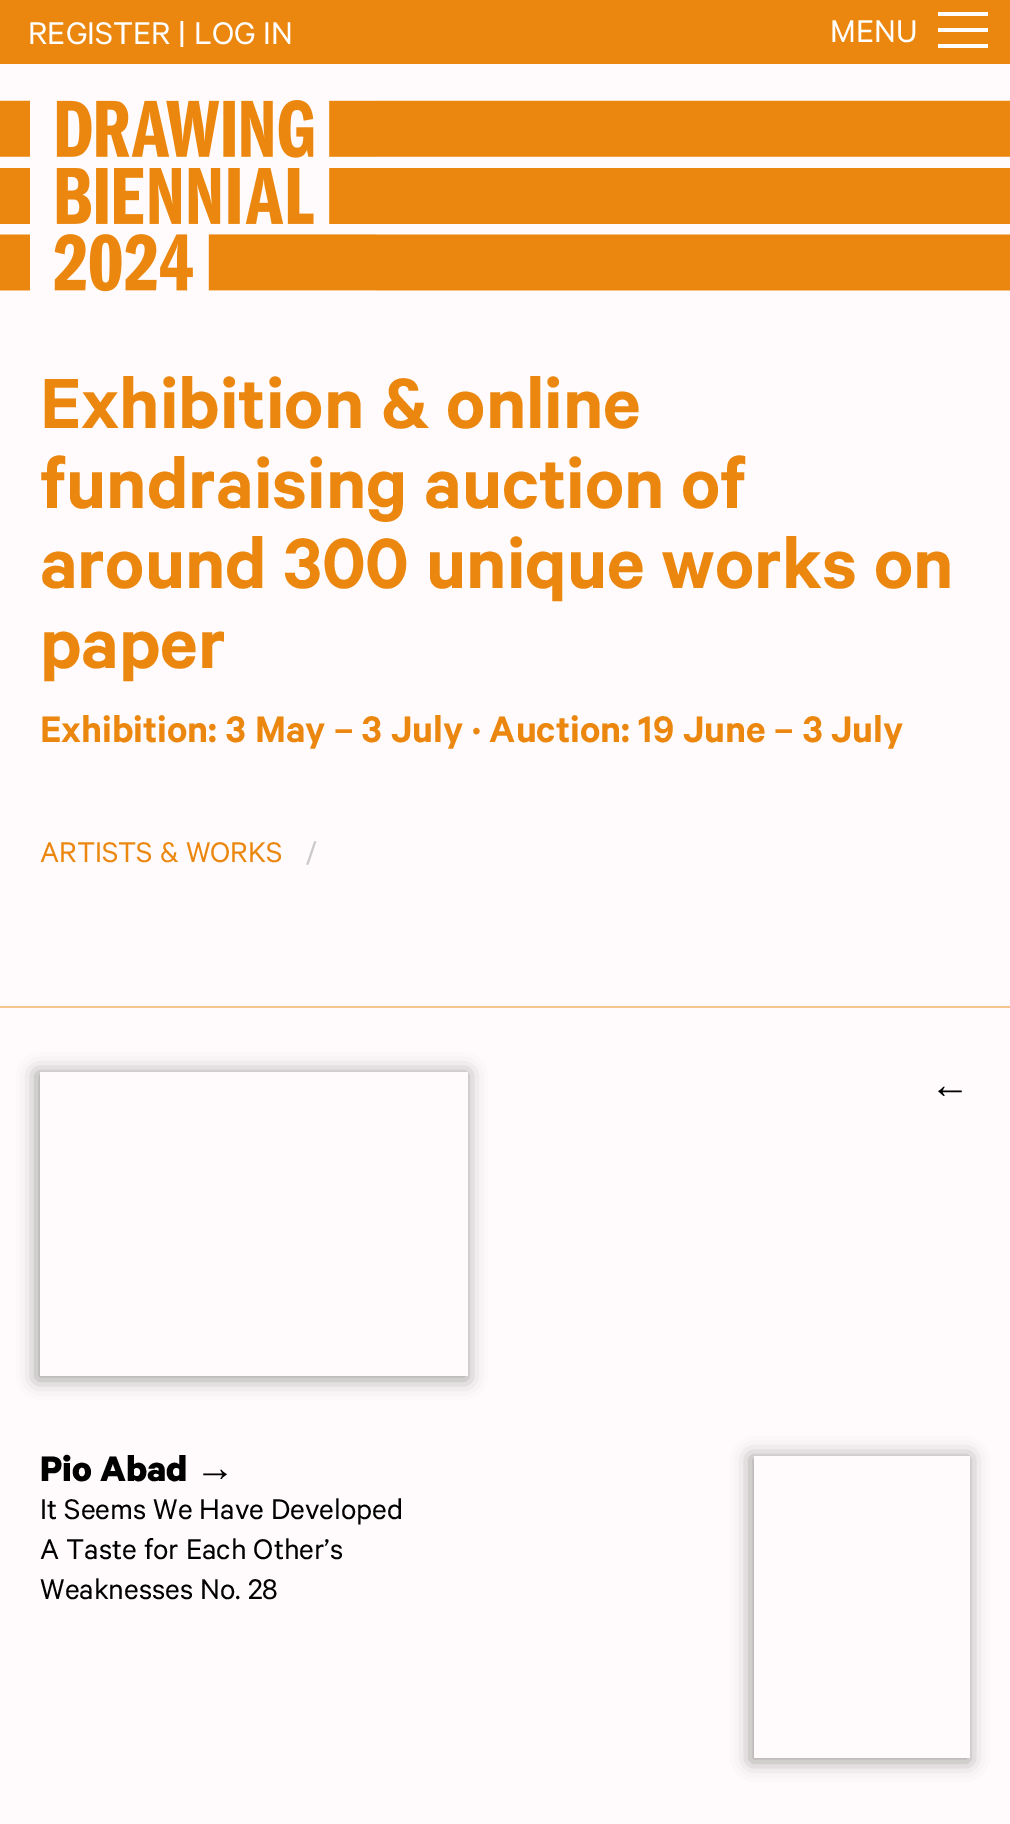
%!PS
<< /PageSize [1010 1824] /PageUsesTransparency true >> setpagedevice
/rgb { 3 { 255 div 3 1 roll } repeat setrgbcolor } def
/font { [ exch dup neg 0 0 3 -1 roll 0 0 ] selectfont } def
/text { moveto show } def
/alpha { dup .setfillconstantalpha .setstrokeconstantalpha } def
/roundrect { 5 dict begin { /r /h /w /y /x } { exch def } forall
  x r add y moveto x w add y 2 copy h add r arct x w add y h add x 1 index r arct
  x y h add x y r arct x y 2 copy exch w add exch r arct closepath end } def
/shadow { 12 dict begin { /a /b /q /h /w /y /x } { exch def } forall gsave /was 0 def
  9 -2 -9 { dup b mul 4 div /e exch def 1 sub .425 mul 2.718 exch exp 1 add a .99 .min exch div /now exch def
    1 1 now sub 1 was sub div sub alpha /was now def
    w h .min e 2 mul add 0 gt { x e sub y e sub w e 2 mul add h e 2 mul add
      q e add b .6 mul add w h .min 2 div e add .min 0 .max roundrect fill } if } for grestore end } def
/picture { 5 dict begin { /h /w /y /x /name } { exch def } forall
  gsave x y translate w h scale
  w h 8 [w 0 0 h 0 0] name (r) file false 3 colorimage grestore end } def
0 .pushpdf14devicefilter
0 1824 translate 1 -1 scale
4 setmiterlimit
255 251 252 rgb
0 0 1010 1824 rectfill
235 135 14 rgb
0 0 1010 64 rectfill
255 255 255 rgb
938 28 50 4 rectfill
938 12 50 4 rectfill
938 44 50 4 rectfill
(img_01.rgb) 0 100 30 191 picture
(img_02.rgb) 54 100 322 192 picture
(img_03.rgb) 376 100 634 191 picture
245 197 142 rgb
0 1006 1010 2 rectfill
gsave
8 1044 moveto 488 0 rlineto 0 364 rlineto -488 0 rlineto closepath 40 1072 moveto 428 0 rlineto 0 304 rlineto -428 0 rlineto closepath eoclip newpath
0 0 0 rgb
36 1072 432 308 0 9 0.35 shadow
grestore
gsave
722 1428 moveto 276 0 rlineto 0 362 rlineto -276 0 rlineto closepath 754 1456 moveto 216 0 rlineto 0 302 rlineto -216 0 rlineto closepath eoclip newpath
0 0 0 rgb
750 1456 220 306 0 9 0.35 shadow
grestore
/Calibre-Regular 35.25 font
255 255 255 rgb
(REGISTER | LOG IN) 28 44 text
(MENU) 830 42 text
/Calibre-SemiBold 80 font
235 135 14 rgb
(Exhibition & online) 40 428 text
(fundraising auction of) 40 508 text
(around 300 unique works on) 40 588 text
(paper) 40 668 text
/Calibre-SemiBold 41.6 font
(Exhibition: 3 May – 3 July · Auction: 19 June – 3 July) 40 742 text
/Calibre-Regular 32 font
(ARTISTS & WORKS) 40 862 text
202 202 202 rgb
(/) 306 862 text
/LiberationSerif-Bold 40 font
0 0 0 rgb
(←) 930 1098 text
/Calibre-Bold 40 font
(Pio Abad) 40 1481 text
/LiberationSerif-Bold 40 font
(→) 195 1481 text
/Calibre-Regular 32 font
(It Seems We Have Developed) 40 1519 text
(A Taste for Each Other’s) 40 1559 text
(Weaknesses No. 28) 40 1599 text
.poppdf14devicefilter showpage
